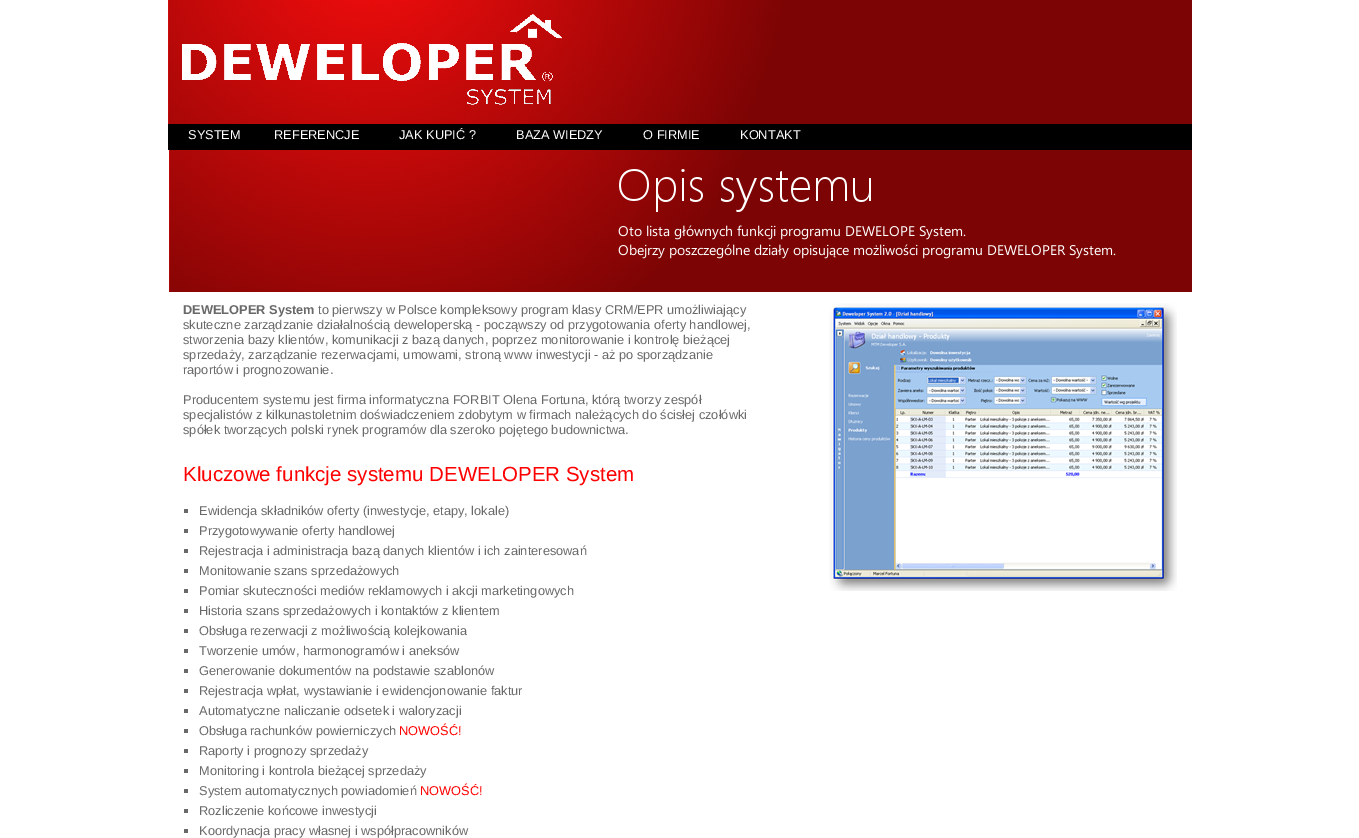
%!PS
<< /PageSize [1359 838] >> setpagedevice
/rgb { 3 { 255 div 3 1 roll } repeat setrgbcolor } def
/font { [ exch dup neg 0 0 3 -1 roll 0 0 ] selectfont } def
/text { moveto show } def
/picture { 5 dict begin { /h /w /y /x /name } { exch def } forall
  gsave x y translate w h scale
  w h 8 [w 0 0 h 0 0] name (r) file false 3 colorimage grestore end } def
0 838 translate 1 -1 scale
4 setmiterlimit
255 255 255 rgb
0 0 1359 838 rectfill
(img_01.rgb) 168 0 1024 124 picture
(img_02.rgb) 182 14 380 91 picture
0 0 0 rgb
168 124 1024 26 rectfill
(img_03.rgb) 169 150 1023 142 picture
105 105 105 rgb
184 509 4 4 rectfill
184 529 4 4 rectfill
184 549 4 4 rectfill
184 569 4 4 rectfill
184 589 4 4 rectfill
184 609 4 4 rectfill
184 629 4 4 rectfill
184 649 4 4 rectfill
184 669 4 4 rectfill
184 689 4 4 rectfill
184 709 4 4 rectfill
184 729 4 4 rectfill
184 749 4 4 rectfill
184 769 4 4 rectfill
184 789 4 4 rectfill
184 809 4 4 rectfill
184 829 4 4 rectfill
(img_04.rgb) 829 303 348 288 picture
/LiberationSans-Regular 12.8 font
255 255 255 rgb
(SYSTEM) 188 139 text
(REFERENCJE) 274 139 text
(JAK KUPIĆ ?) 399 139 text
(BAZA WIEDZY) 516 139 text
(O FIRMIE) 643 139 text
(KONTAKT) 740 139 text
/LiberationSans-Bold 12.8 font
105 105 105 rgb
(DEWELOPER System) 183 314 text
/LiberationSans-Regular 12.8 font
(to pierwszy w Polsce kompleksowy program klasy CRM/EPR umożliwiający) 318 314 text
(skuteczne zarządzanie działalnością deweloperską - począwszy od przygotowania oferty handlowej,) 183 329 text
(stworzenia bazy klientów, komunikacji z bazą danych, poprzez monitorowanie i kontrolę bieżącej) 183 344 text
(sprzedaży, zarządzanie rezerwacjami, umowami, stroną www inwestycji - aż po sporządzanie) 183 359 text
(raportów i prognozowanie.) 183 374 text
(Producentem systemu jest firma informatyczna FORBIT Olena Fortuna, którą tworzy zespół) 183 404 text
(specjalistów z kilkunastoletnim doświadczeniem zdobytym w firmach należących do ścisłej czołówki) 183 419 text
(spółek tworzących polski rynek programów dla szeroko pojętego budownictwa.) 183 434 text
/LiberationSans-Regular 20.5 font
255 0 0 rgb
(Kluczowe funkcje systemu DEWELOPER System) 183 481 text
/LiberationSans-Regular 12.8 font
105 105 105 rgb
(Ewidencja składników oferty \(inwestycje, etapy, lokale\)) 199 515 text
(Przygotowywanie oferty handlowej) 199 535 text
(Rejestracja i administracja bazą danych klientów i ich zainteresowań) 199 555 text
(Monitowanie szans sprzedażowych) 199 575 text
(Pomiar skuteczności mediów reklamowych i akcji marketingowych) 199 595 text
(Historia szans sprzedażowych i kontaktów z klientem) 199 615 text
(Obsługa rezerwacji z możliwością kolejkowania) 199 635 text
(Tworzenie umów, harmonogramów i aneksów) 199 655 text
(Generowanie dokumentów na podstawie szablonów) 199 675 text
(Rejestracja wpłat, wystawianie i ewidencjonowanie faktur) 199 695 text
(Automatyczne naliczanie odsetek i waloryzacji) 199 715 text
(Obsługa rachunków powierniczych) 199 735 text
255 0 0 rgb
(NOWOŚĆ!) 399 735 text
105 105 105 rgb
(Raporty i prognozy sprzedaży) 199 755 text
(Monitoring i kontrola bieżącej sprzedaży) 199 775 text
(System automatycznych powiadomień) 199 795 text
255 0 0 rgb
(NOWOŚĆ!) 420 795 text
105 105 105 rgb
(Rozliczenie końcowe inwestycji) 199 815 text
(Koordynacja pracy własnej i współpracowników) 199 835 text
showpage
